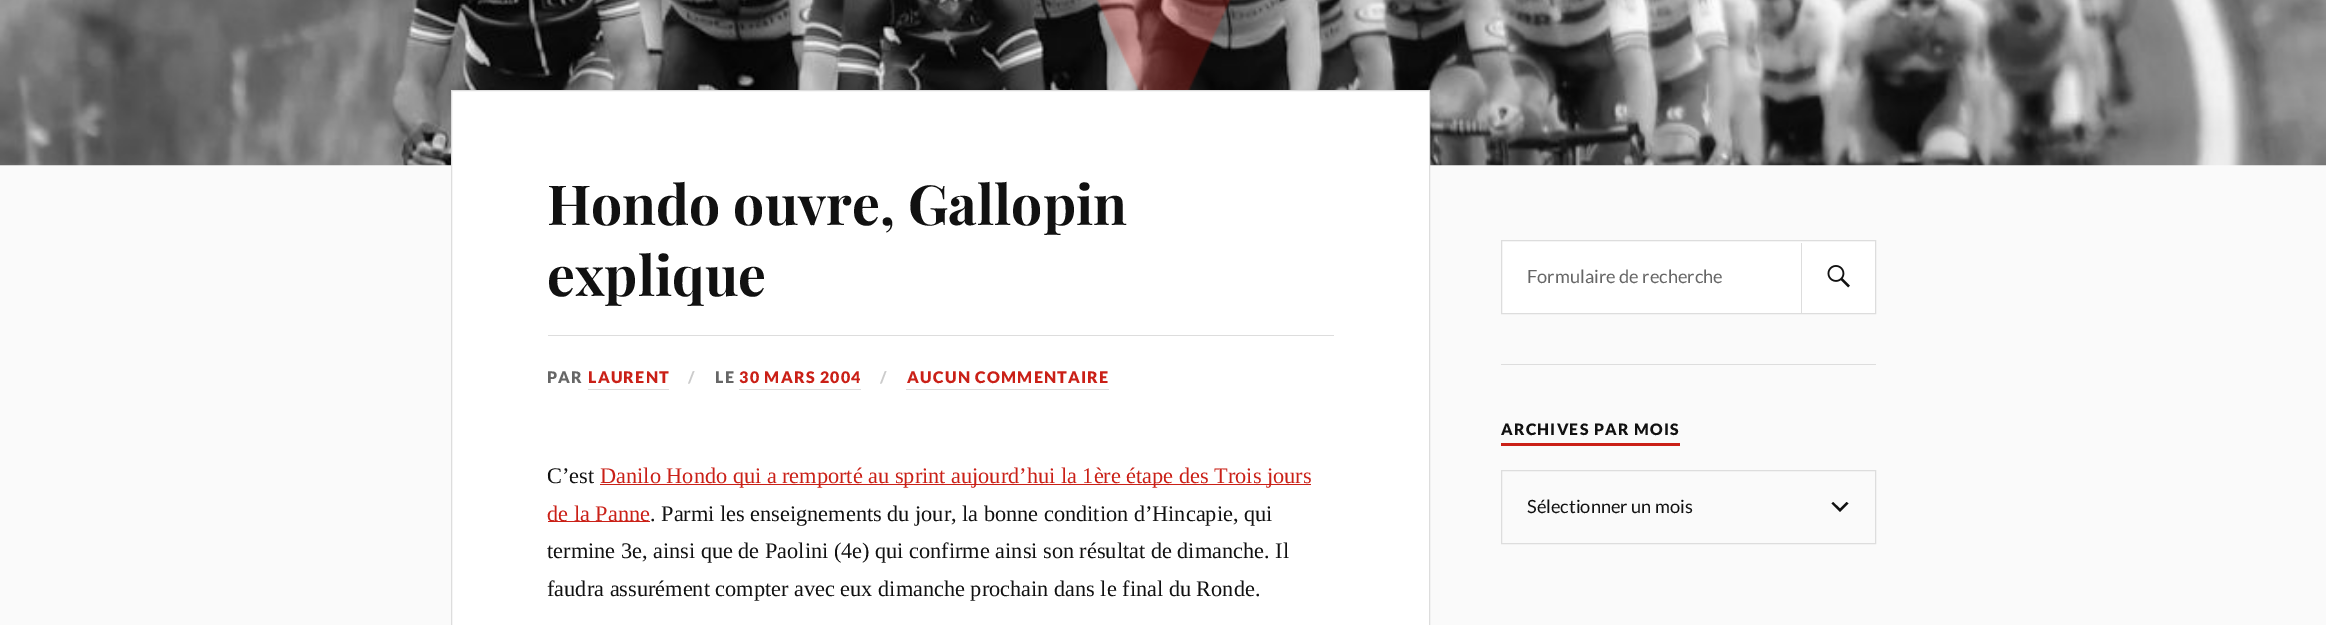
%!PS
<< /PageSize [2326 625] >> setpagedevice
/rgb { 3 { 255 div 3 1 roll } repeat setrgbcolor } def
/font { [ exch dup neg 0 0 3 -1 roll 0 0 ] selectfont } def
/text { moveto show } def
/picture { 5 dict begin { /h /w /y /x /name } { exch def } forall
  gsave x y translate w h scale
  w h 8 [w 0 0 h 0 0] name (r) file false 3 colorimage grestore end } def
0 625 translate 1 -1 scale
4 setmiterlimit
250 250 250 rgb
0 0 2326 625 rectfill
(img_01.rgb) 0 0 2326 166 picture
(img_02.rgb) 1096 0 136 90 picture
255 255 255 rgb
451.5 90.5 moveto 978 0 rlineto 0 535 rlineto -978 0 rlineto closepath gsave fill grestore
221 221 221 rgb
stroke
548 335 786 1 rectfill
588 389 81 1 rectfill
739 389 122 1 rectfill
906 389 203 1 rectfill
202 32 23 rgb
600 484 711 1 rectfill
548 521 102 1 rectfill
255 255 255 rgb
1501.5 240.5 moveto 374 0 rlineto 0 73 rlineto -374 0 rlineto closepath gsave fill grestore
221 221 221 rgb
stroke
1801 243 1 70 rectfill
(img_03.rgb) 1827 265 23 23 picture
1501 364 375 1 rectfill
202 32 23 rgb
1501 443 179 3 rectfill
17 17 17 rgb
1840 508.5 moveto 6.5 -6.5 rlineto 2 1.5 rlineto -8.5 8.5 rlineto -8.5 -8.5 rlineto 1.5 -1.5 rlineto closepath eofill
221 221 221 rgb
1501.5 470.5 374 73 rectstroke
/PlayfairDisplay-Bold 55.25 font
17 17 17 rgb
(Hondo ouvre, Gallopin) 547 225 text
(explique) 547 296 text
/Lato-Black 16 font
102 102 102 rgb
547 383 moveto 1.25 0 (PAR) ashow
202 32 23 rgb
588 383 moveto 1.25 0 (LAURENT) ashow
204 204 204 rgb
688 383 moveto 1.25 0 (/) ashow
102 102 102 rgb
715 383 moveto 1.25 0 (LE) ashow
202 32 23 rgb
739 383 moveto 1.25 0 (30 MARS 2004) ashow
204 204 204 rgb
880 383 moveto 1.25 0 (/) ashow
202 32 23 rgb
907 383 moveto 1.25 0 (AUCUN COMMENTAIRE) ashow
/LiberationSerif-Regular 22.3 font
17 17 17 rgb
(C’est) 547 483 text
202 32 23 rgb
(Danilo Hondo qui a remporté au sprint aujourd’hui la 1ère étape des Trois jours) 600 483 text
(de la Panne) 547 521 text
17 17 17 rgb
(. Parmi les enseignements du jour, la bonne condition d’Hincapie, qui) 650 521 text
(termine 3e, ainsi que de Paolini \(4e\) qui confirme ainsi son résultat de dimanche. Il) 547 558 text
(faudra assurément compter avec eux dimanche prochain dans le final du Ronde.) 547 596 text
/Lato-Regular 18.25 font
102 102 102 rgb
(Formulaire de recherche) 1527 283 text
/Lato-Black 15.75 font
17 17 17 rgb
1501 435 moveto 1.25 0 (ARCHIVES PAR MOIS) ashow
/Lato-Regular 18.25 font
(Sélectionner un mois) 1527 513 text
showpage
